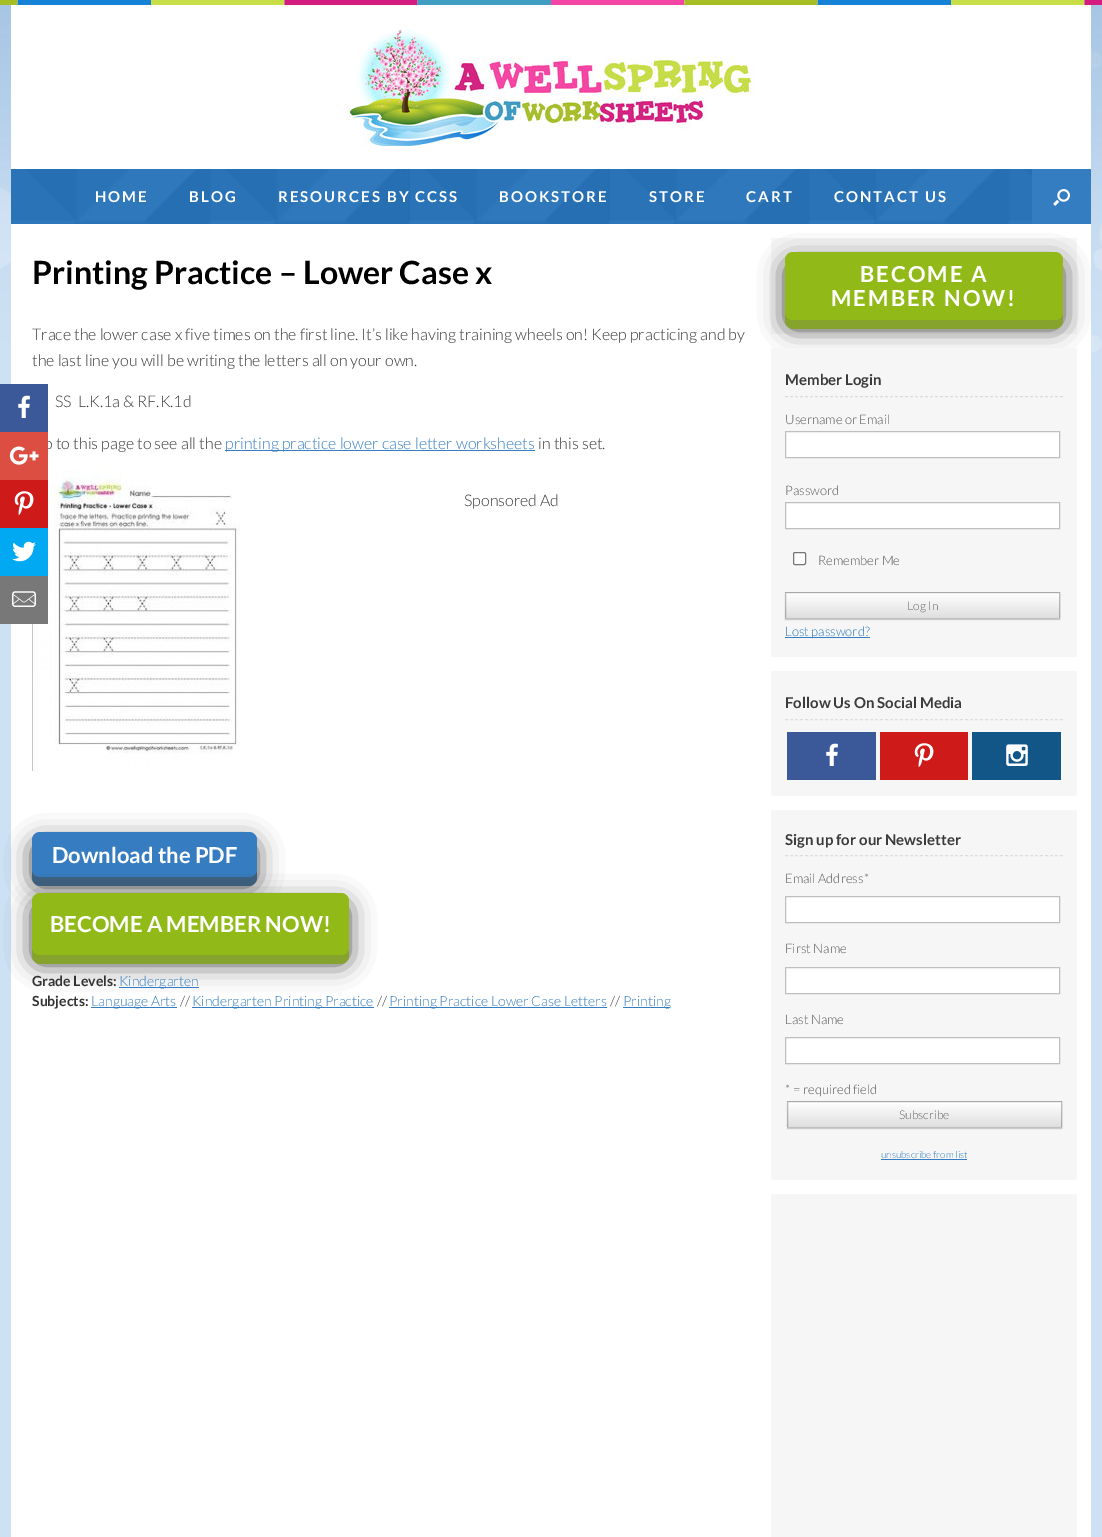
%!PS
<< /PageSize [1102 1537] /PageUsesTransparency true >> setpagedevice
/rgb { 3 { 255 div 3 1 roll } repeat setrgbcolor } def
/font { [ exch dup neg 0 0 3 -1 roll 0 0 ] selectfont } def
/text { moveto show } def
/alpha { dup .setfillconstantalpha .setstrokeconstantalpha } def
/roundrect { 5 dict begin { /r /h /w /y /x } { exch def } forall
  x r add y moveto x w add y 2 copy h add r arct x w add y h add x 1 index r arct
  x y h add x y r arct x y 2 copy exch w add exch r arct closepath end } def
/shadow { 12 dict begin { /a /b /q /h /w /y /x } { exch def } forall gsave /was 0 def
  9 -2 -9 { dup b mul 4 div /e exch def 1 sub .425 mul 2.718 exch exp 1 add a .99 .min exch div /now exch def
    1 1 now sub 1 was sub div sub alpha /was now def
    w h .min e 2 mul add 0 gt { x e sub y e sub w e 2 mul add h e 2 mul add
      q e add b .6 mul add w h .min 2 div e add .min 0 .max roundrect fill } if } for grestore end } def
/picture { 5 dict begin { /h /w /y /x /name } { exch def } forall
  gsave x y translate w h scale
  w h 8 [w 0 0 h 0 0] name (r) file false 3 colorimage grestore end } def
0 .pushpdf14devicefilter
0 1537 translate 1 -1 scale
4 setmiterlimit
206 225 244 rgb
0 0 1102 1537 rectfill
(img_01.rgb) 0 5 1102 411 picture
(img_02.rgb) 0 0 1102 5 picture
255 255 255 rgb
11 224 1080 1313 rectfill
59 89 152 rgb
0 384 48 48 rectfill
(img_03.rgb) 18 395 12 23 picture
(img_11.rgb) 32 471 208 300 picture
206 26 25 rgb
0 480 48 48 rectfill
(img_05.rgb) 14 491 20 25 picture
0 169 241 rgb
0 528 48 48 rectfill
(img_06.rgb) 12 541 24 21 picture
120 120 120 rgb
0 576 48 48 rectfill
(img_07.rgb) 12 591 24 16 picture
255 255 255 rgb
11 5 1080 164 rectfill
(img_08.rgb) 347 25 408 124 picture
246 246 246 rgb
771 238 306 96 rectfill
0 0 0 rgb
785 261 278 68 8 12.5 0.7 shadow
(img_09.rgb) 11 169 1021 55 picture
53 125 193 rgb
1032 169 59 55 rectfill
(img_10.rgb) 1053 189 17 17 picture
53 125 192 rgb
225 450 310 1 rectfill
0 0 0 rgb
32 841 225 45 8 12.5 0.7 shadow
64 98 130 rgb
32 869 moveto 0 9 rlineto 0 4 4 8 8 8 rcurveto 209 0 rlineto 4 0 8 -4 8 -8 rcurveto 0 -9 rlineto 0 4 -4 8 -8 8 rcurveto -209 0 rlineto -4 0 -8 -4 -8 -8 rcurveto closepath fill
53 125 192 rgb
32 832 225 45 8 roundrect fill
0 0 0 rgb
32 902 317 62 8 12.5 0.7 shadow
134 164 45 rgb
32 947 moveto 0 9 rlineto 0 4 4 8 8 8 rcurveto 301 0 rlineto 4 0 8 -4 8 -8 rcurveto 0 -9 rlineto 0 4 -4 8 -8 8 rcurveto -301 0 rlineto -4 0 -8 -4 -8 -8 rcurveto closepath fill
145 185 24 rgb
32 893 317 62 8 roundrect fill
53 125 192 rgb
119 987 80 1 rectfill
91 1007 86 1 rectfill
192 1007 182 1 rectfill
389 1007 218 1 rectfill
623 1007 47 1 rectfill
134 164 45 rgb
785 312 moveto 0 9 rlineto 0 4 4 8 8 8 rcurveto 262 0 rlineto 4 0 8 -4 8 -8 rcurveto 0 -9 rlineto 0 4 -4 8 -8 8 rcurveto -262 0 rlineto -4 0 -8 -4 -8 -8 rcurveto closepath fill
145 185 24 rgb
785 252 278 68 8 roundrect fill
246 246 246 rgb
771 348 306 309 rectfill
221 221 221 rgb
[3 2] 0 setdash
785 396.5 moveto 278 0 rlineto stroke
255 255 255 rgb
785.5 431.5 moveto 274 0 rlineto 0 26 rlineto -274 0 rlineto closepath gsave fill grestore
191 191 191 rgb
[] 0 setdash
stroke
255 255 255 rgb
785.5 502.5 moveto 274 0 rlineto 0 26 rlineto -274 0 rlineto closepath gsave fill grestore
191 191 191 rgb
stroke
255 255 255 rgb
793.5 552.5 12 12 1.5 roundrect gsave fill grestore
118 118 118 rgb
stroke
0 0 0 rgb
785 593 275 27 0 0.5 0.12 shadow
gsave 785 592 moveto 275 0 rlineto 0 1 rlineto -275 0 rlineto closepath clip newpath
<< /ShadingType 2 /ColorSpace /DeviceRGB /Coords [786 593 786 568] /Extend [true true] /Function << /FunctionType 2 /Domain [0 1] /C0 [0.875 0.875 0.875] /C1 [1 1 1] /N 1 >> >> shfill grestore
gsave 785 593 moveto 275 0 rlineto 0 25 rlineto -275 0 rlineto closepath clip newpath
<< /ShadingType 2 /ColorSpace /DeviceRGB /Coords [786 618 786 593] /Extend [true true] /Function << /FunctionType 2 /Domain [0 1] /C0 [0.875 0.875 0.875] /C1 [1 1 1] /N 1 >> >> shfill grestore
gsave 785 618 moveto 275 0 rlineto 0 1 rlineto -275 0 rlineto closepath clip newpath
<< /ShadingType 2 /ColorSpace /DeviceRGB /Coords [786 643 786 618] /Extend [true true] /Function << /FunctionType 2 /Domain [0 1] /C0 [0.875 0.875 0.875] /C1 [1 1 1] /N 1 >> >> shfill grestore
0.25 alpha
785.5 592.5 274 26 rectstroke
1 alpha
53 125 192 rgb
785 637 85 1 rectfill
246 246 246 rgb
771 671 306 125 rectfill
221 221 221 rgb
[3 2] 0 setdash
785 719.5 moveto 278 0 rlineto stroke
59 89 152 rgb
787 732 89 48 rectfill
(img_03.rgb) 826 743 12 23 picture
206 26 25 rgb
880 732 88 48 rectfill
(img_05.rgb) 914 743 20 25 picture
18 86 136 rgb
972 732 89 48 rectfill
(img_12.rgb) 1006 744 22 22 picture
246 246 246 rgb
771 810 306 370 rectfill
221 221 221 rgb
785 855.5 moveto 278 0 rlineto stroke
255 255 255 rgb
785.5 896.5 moveto 274 0 rlineto 0 26 rlineto -274 0 rlineto closepath gsave fill grestore
191 191 191 rgb
[] 0 setdash
stroke
255 255 255 rgb
785.5 967.5 moveto 274 0 rlineto 0 26 rlineto -274 0 rlineto closepath gsave fill grestore
191 191 191 rgb
stroke
255 255 255 rgb
785.5 1037.5 moveto 274 0 rlineto 0 26 rlineto -274 0 rlineto closepath gsave fill grestore
191 191 191 rgb
stroke
0 0 0 rgb
787 1102 275 27 0 0.5 0.12 shadow
gsave 787 1101 moveto 275 0 rlineto 0 1 rlineto -275 0 rlineto closepath clip newpath
<< /ShadingType 2 /ColorSpace /DeviceRGB /Coords [788 1102 788 1077] /Extend [true true] /Function << /FunctionType 2 /Domain [0 1] /C0 [0.875 0.875 0.875] /C1 [1 1 1] /N 1 >> >> shfill grestore
gsave 787 1102 moveto 275 0 rlineto 0 25 rlineto -275 0 rlineto closepath clip newpath
<< /ShadingType 2 /ColorSpace /DeviceRGB /Coords [788 1127 788 1102] /Extend [true true] /Function << /FunctionType 2 /Domain [0 1] /C0 [0.875 0.875 0.875] /C1 [1 1 1] /N 1 >> >> shfill grestore
gsave 787 1127 moveto 275 0 rlineto 0 1 rlineto -275 0 rlineto closepath clip newpath
<< /ShadingType 2 /ColorSpace /DeviceRGB /Coords [788 1152 788 1127] /Extend [true true] /Function << /FunctionType 2 /Domain [0 1] /C0 [0.875 0.875 0.875] /C1 [1 1 1] /N 1 >> >> shfill grestore
0.25 alpha
787.5 1101.5 274 26 rectstroke
1 alpha
53 125 192 rgb
881 1159 86 1 rectfill
246 246 246 rgb
771 1194 306 343 rectfill
/Lato-Bold 15 font
255 255 255 rgb
95 202 moveto 2 0 (HOME) ashow
189 202 moveto 2 0 (BLOG) ashow
278 202 moveto 2 0 (RESOURCES BY CCSS) ashow
499 202 moveto 2 0 (BOOKSTORE) ashow
649 202 moveto 2 0 (STORE) ashow
746 202 moveto 2 0 (CART) ashow
834 202 moveto 2 0 (CONTACT US) ashow
/Lato-Bold 32 font
0 0 0 rgb
(Printing Practice – Lower Case x) 32 284 text
/Lato-Light 16 font
51 51 51 rgb
(Trace the lower case x five times on the first line. It’s like having training wheels on! Keep practicing and by) 32 340 text
(the last line you will be writing the letters all on your own.) 32 366 text
(SS  L.K.1a & RF.K.1d) 55 407 text
(o to this page to see all the) 44 449 text
220 78 65 rgb
0 432 48 48 rectfill
(img_04.rgb) 9 446 30 19 picture
53 125 192 rgb
(printing practice lower case letter worksheets) 225 449 text
51 51 51 rgb
(in this set.) 538 449 text
(Sponsored Ad) 464 506 text
/Lato-Bold 22 font
255 255 255 rgb
(Download the PDF) 52 863 text
(BECOME A MEMBER NOW!) 50 932 text
/Lato-Bold 14 font
51 51 51 rgb
(Grade Levels:) 32 986 text
/Lato-Light 14 font
53 125 192 rgb
(Kindergarten) 119 986 text
/Lato-Bold 14 font
51 51 51 rgb
(Subjects:) 32 1006 text
/Lato-Light 14 font
53 125 192 rgb
(Language Arts) 91 1006 text
51 51 51 rgb
(//) 180 1006 text
53 125 192 rgb
(Kindergarten Printing Practice) 192 1006 text
51 51 51 rgb
(//) 377 1006 text
53 125 192 rgb
(Printing Practice Lower Case Letters) 389 1006 text
51 51 51 rgb
(//) 610 1006 text
53 125 192 rgb
(Printing) 623 1006 text
/Lato-Bold 22 font
255 255 255 rgb
860 282 moveto 2 0 (BECOME A) ashow
831 306 moveto 2 0 (MEMBER NOW!) ashow
/Lato-Bold 15 font
59 59 59 rgb
(Member Login) 785 385 text
/Lato-Light 13 font
94 94 94 rgb
(Username or Email) 785 424 text
(Password) 785 495 text
(Remember Me) 818 565 text
/Lato-Light 12 font
100 100 100 rgb
(Log In) 907 610 text
/Lato-Light 13 font
53 125 192 rgb
(Lost password?) 785 636 text
/Lato-Bold 15 font
59 59 59 rgb
(Follow Us On Social Media) 785 708 text
(Sign up for our Newsletter) 785 845 text
/Lato-Light 13 font
94 94 94 rgb
(Email Address*) 785 883 text
(First Name) 785 953 text
(Last Name) 785 1024 text
(* = required field) 785 1094 text
/Lato-Light 12 font
100 100 100 rgb
(Subscribe) 899 1119 text
/Lato-Light 9.75 font
53 125 192 rgb
(unsubscribe from list) 881 1158 text
.poppdf14devicefilter showpage
